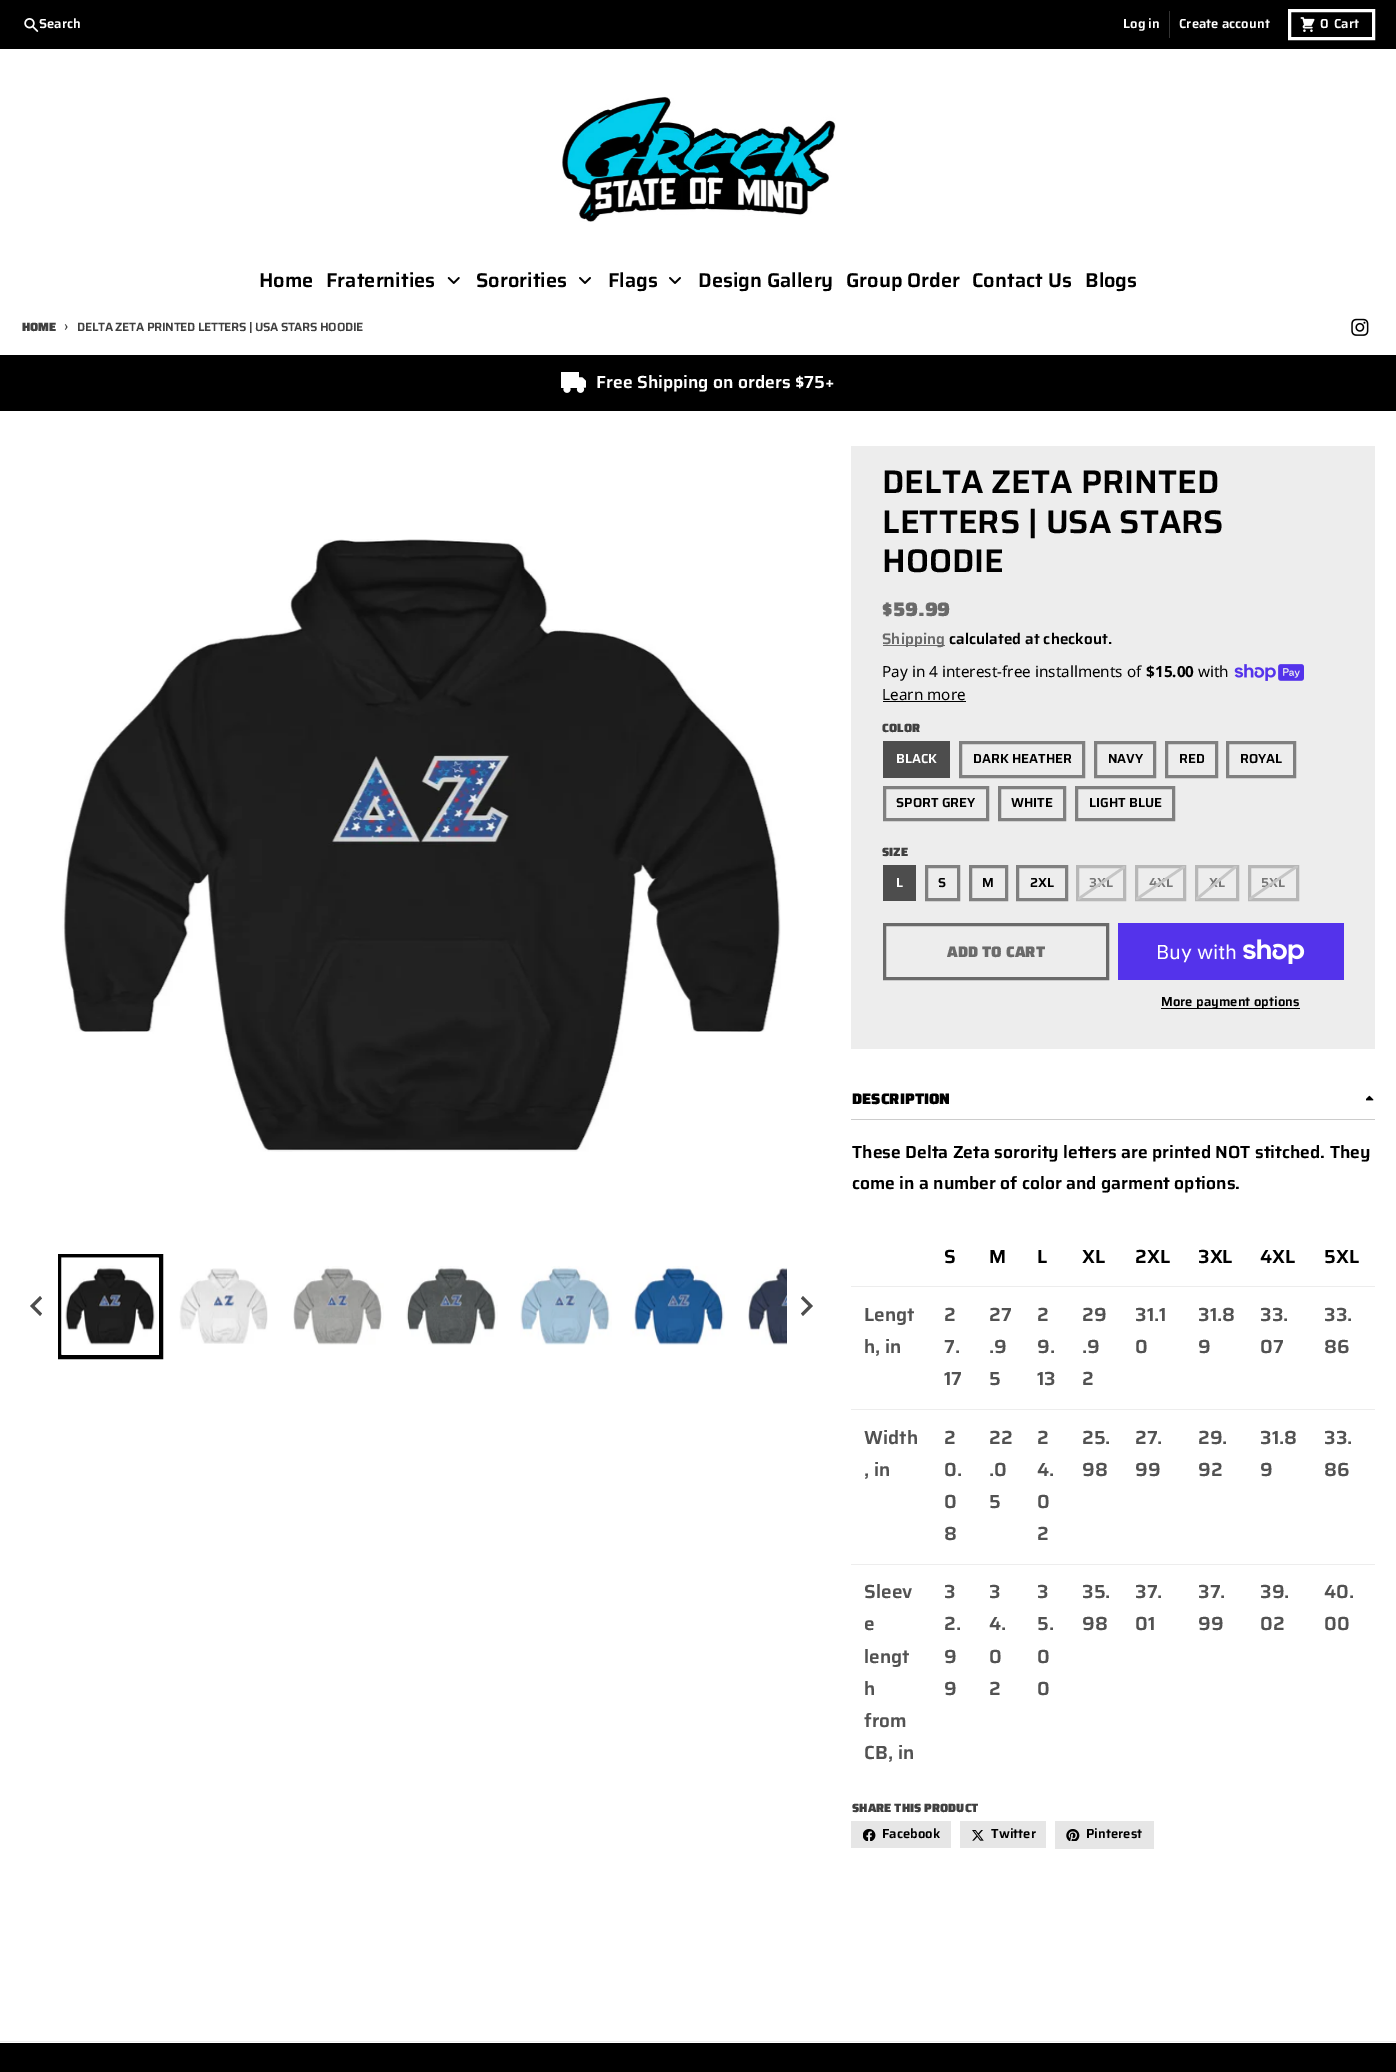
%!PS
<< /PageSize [1396 2072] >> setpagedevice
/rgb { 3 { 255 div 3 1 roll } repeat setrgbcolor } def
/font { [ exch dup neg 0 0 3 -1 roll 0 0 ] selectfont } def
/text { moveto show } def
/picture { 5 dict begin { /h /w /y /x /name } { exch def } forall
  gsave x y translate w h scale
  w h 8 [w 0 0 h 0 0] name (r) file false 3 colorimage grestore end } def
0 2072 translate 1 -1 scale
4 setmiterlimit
0 0 0 rgb
0 0 1396 2072 rectfill
(img_01.rgb) 24 18 15 14 picture
51 51 51 rgb
1169 11 1 27 rectfill
255 255 255 rgb
3 setlinewidth
1289.5 10.5 84 28 rectstroke
(img_02.rgb) 1300 17 15 15 picture
0 49 1396 1994 rectfill
(img_03.rgb) 562 96 274 126 picture
(img_04.rgb) 447 277 13 7 picture
(img_05.rgb) 579 277 12 7 picture
(img_05.rgb) 669 277 12 7 picture
(img_06.rgb) 1351 318 18 18 picture
0 0 0 rgb
0 355 1396 56 rectfill
(img_07.rgb) 561 372 25 21 picture
(img_08.rgb) 62 539 719 613 picture
4 setlinewidth
60 1256 101 101 rectstroke
(img_09.rgb) 61 1257 98 98 picture
(img_10.rgb) 179 1268 89 76 picture
(img_11.rgb) 293 1266 91 79 picture
(img_12.rgb) 406 1266 92 79 picture
(img_13.rgb) 520 1266 92 79 picture
(img_14.rgb) 630 1266 95 79 picture
(img_15.rgb) 748 1267 39 78 picture
77 77 77 rgb
40 1296 moveto 2 2.5 rlineto -7.5 7.5 rlineto 7.5 7.5 rlineto -2 2.5 rlineto -10 -10 rlineto closepath fill
803 1296 moveto -2 2.5 rlineto 7.5 7.5 rlineto -7.5 7.5 rlineto 2 2.5 rlineto 10 -10 rlineto closepath fill
237 237 237 rgb
851 446 524 603 rectfill
106 106 106 rgb
883 645 62 1 rectfill
(img_16.rgb) 1234 664 70 17 picture
0 0 0 rgb
883 701 83 1 rectfill
77 77 77 rgb
883 741 67 37 rectfill
128 128 128 rgb
3 setlinewidth
960.5 742.5 123 34 rectstroke
1095.5 742.5 59 34 rectstroke
1166.5 742.5 50 34 rectstroke
1227.5 742.5 67 34 rectstroke
884.5 787.5 103 32 rectstroke
999.5 787.5 65 32 rectstroke
1076.5 787.5 97 32 rectstroke
77 77 77 rgb
883 865 33 36 rectfill
128 128 128 rgb
926.5 866.5 32 33 rectstroke
970.5 866.5 36 33 rectstroke
1017.5 866.5 49 33 rectstroke
183 183 183 rgb
1077.5 866.5 47 33 rectstroke
1136.5 866.5 48 33 rectstroke
1196.5 866.5 41 33 rectstroke
1249.5 866.5 48 33 rectstroke
106 106 106 rgb
884.5 924.5 223 54 rectstroke
84 51 235 rgb
1118 923 226 57 rectfill
(img_17.rgb) 1243 939 62 25 picture
0 0 0 rgb
1161 1008 139 1 rectfill
204 204 204 rgb
851 1119 524 1 rectfill
(img_18.rgb) 1366 1095 8 6 picture
237 237 237 rgb
851 1286 524 1 rectfill
851 1409 524 1 rectfill
851 1564 524 1 rectfill
230 230 230 rgb
851 1821 100 27 rectfill
(img_19.rgb) 863 1829 13 12 picture
960 1821 86 27 rectfill
(img_20.rgb) 972 1830 12 11 picture
1055 1821 99 28 rectfill
(img_21.rgb) 1066 1829 14 12 picture
237 237 237 rgb
0 2041 1396 1 rectfill
/Saira-SemiBold 13.1 font
255 255 255 rgb
(Search) 39 28 text
(Log in) 1123 28 text
(Create account) 1179 28 text
(0) 1320 28 text
(Cart) 1334 28 text
/Saira-SemiBold 20 font
0 0 0 rgb
(Home) 259 287 text
(Fraternities) 326 287 text
(Sororities) 476 287 text
(Flags) 608 287 text
(Design Gallery) 698 287 text
(Group Order) 846 287 text
(Contact Us) 972 287 text
(Blogs) 1085 287 text
/Saira-Black 12 font
64 64 64 rgb
22 331 moveto -0.3 0 (HOME) ashow
/Saira-SemiBold 13.1 font
64 331 moveto -0.3 0 (›) ashow
/Saira-SemiBold 12 font
77 331 moveto -0.3 0 (DELTA ZETA PRINTED LETTERS | USA STARS HOODIE) ashow
/Saira-SemiBold 17.5 font
255 255 255 rgb
(Free Shipping on orders $75+) 596 388 text
/Saira-SemiBold 32.75 font
0 0 0 rgb
(DELTA ZETA PRINTED) 882 493 text
(LETTERS | USA STARS) 882 533 text
(HOODIE) 882 572 text
/Saira-Black 19.5 font
106 106 106 rgb
($59.99) 882 616 text
/Saira-SemiBold 15.3 font
(Shipping) 882 644 text
0 0 0 rgb
(calculated at checkout.) 949 644 text
/NotoSans-Regular 15.3 font
(Pay in 4 interest-free installments of) 882 677 text
/NotoSans-Bold 15.3 font
($15.00) 1146 677 text
/NotoSans-Regular 15.3 font
(with) 1198 677 text
(Learn more) 882 700 text
/Saira-Black 12 font
64 64 64 rgb
(COLOR) 882 732 text
/Saira-SemiBold 13.1 font
255 255 255 rgb
(BLACK) 896 763 text
0 0 0 rgb
(DARK HEATHER) 973 763 text
(NAVY) 1108 763 text
(RED) 1179 763 text
(ROYAL) 1240 763 text
(SPORT GREY) 896 807 text
(WHITE) 1011 807 text
(LIGHT BLUE) 1089 807 text
/Saira-Black 12 font
64 64 64 rgb
(SIZE) 882 856 text
/Saira-SemiBold 13.1 font
255 255 255 rgb
(L) 896 887 text
0 0 0 rgb
(S) 938 887 text
(M) 982 887 text
(2XL) 1030 887 text
119 119 119 rgb
(3XL) 1089 887 text
gsave
1078 866 47 34 rectclip
197 197 197 rgb
2.5 setlinewidth
1077.5 899.5 moveto 48.5 -33.5 rlineto stroke
grestore
(4XL) 1149 887 text
gsave
1136 866 49 34 rectclip
197 197 197 rgb
2.5 setlinewidth
1136 899.5 moveto 49 -33.5 rlineto stroke
grestore
(XL) 1209 887 text
gsave
1196 866 42 34 rectclip
197 197 197 rgb
2.5 setlinewidth
1196 899.5 moveto 40.5 -33.5 rlineto stroke
grestore
(5XL) 1261 887 text
gsave
1249 866 49 34 rectclip
197 197 197 rgb
2.5 setlinewidth
1249 899.5 moveto 48.5 -33.5 rlineto stroke
grestore
/Saira-Black 15.3 font
106 106 106 rgb
(ADD TO CART) 947 957 text
/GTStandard-Regular 20 font
255 255 255 rgb
(Buy with) 1156 959 text
/Saira-SemiBold 13.1 font
0 0 0 rgb
(More payment options) 1161 1006 text
/Saira-Black 15.3 font
(DESCRIPTION) 852 1104 text
/Saira-SemiBold 17.5 font
(These Delta Zeta sorority letters are printed NOT stitched. They) 852 1158 text
(come in a number of color and garment options.) 852 1189 text
/Saira-SemiBold 19 font
(S) 944 1263 text
(M) 989 1263 text
(L) 1037 1263 text
(XL) 1082 1263 text
(2XL) 1135 1263 text
(3XL) 1198 1263 text
(4XL) 1260 1263 text
(5XL) 1324 1263 text
82 82 82 rgb
(Lengt) 864 1321 text
(h, in) 864 1353 text
(2) 944 1321 text
(7.) 944 1353 text
(17) 944 1385 text
(27) 989 1321 text
(.9) 989 1353 text
(5) 989 1385 text
(2) 1037 1321 text
(9.) 1037 1353 text
(13) 1037 1385 text
(29) 1082 1321 text
(.9) 1082 1353 text
(2) 1082 1385 text
(31.1) 1135 1321 text
(0) 1135 1353 text
(31.8) 1198 1321 text
(9) 1198 1353 text
(33.) 1260 1321 text
(07) 1260 1353 text
(33.) 1324 1321 text
(86) 1324 1353 text
(Width) 864 1444 text
(, in) 864 1476 text
(2) 944 1444 text
(0.) 944 1476 text
(0) 944 1508 text
(8) 944 1540 text
(22) 989 1444 text
(.0) 989 1476 text
(5) 989 1508 text
(2) 1037 1444 text
(4.) 1037 1476 text
(0) 1037 1508 text
(2) 1037 1540 text
(25.) 1082 1444 text
(98) 1082 1476 text
(27.) 1135 1444 text
(99) 1135 1476 text
(29.) 1198 1444 text
(92) 1198 1476 text
(31.8) 1260 1444 text
(9) 1260 1476 text
(33.) 1324 1444 text
(86) 1324 1476 text
(Sleev) 864 1598 text
(e) 864 1630 text
(lengt) 864 1663 text
(h) 864 1695 text
(from) 864 1727 text
(CB, in) 864 1759 text
(3) 944 1598 text
(2.) 944 1630 text
(9) 944 1663 text
(9) 944 1695 text
(3) 989 1598 text
(4.) 989 1630 text
(0) 989 1663 text
(2) 989 1695 text
(3) 1037 1598 text
(5.) 1037 1630 text
(0) 1037 1663 text
(0) 1037 1695 text
(35.) 1082 1598 text
(98) 1082 1630 text
(37.) 1135 1598 text
(01) 1135 1630 text
(37.) 1198 1598 text
(99) 1198 1630 text
(39.) 1260 1598 text
(02) 1260 1630 text
(40.) 1324 1598 text
(00) 1324 1630 text
/Saira-Black 12 font
64 64 64 rgb
(SHARE THIS PRODUCT) 852 1812 text
/Saira-SemiBold 13.1 font
0 0 0 rgb
(Facebook) 882 1838 text
(Twitter) 991 1838 text
(Pinterest) 1086 1838 text
showpage
